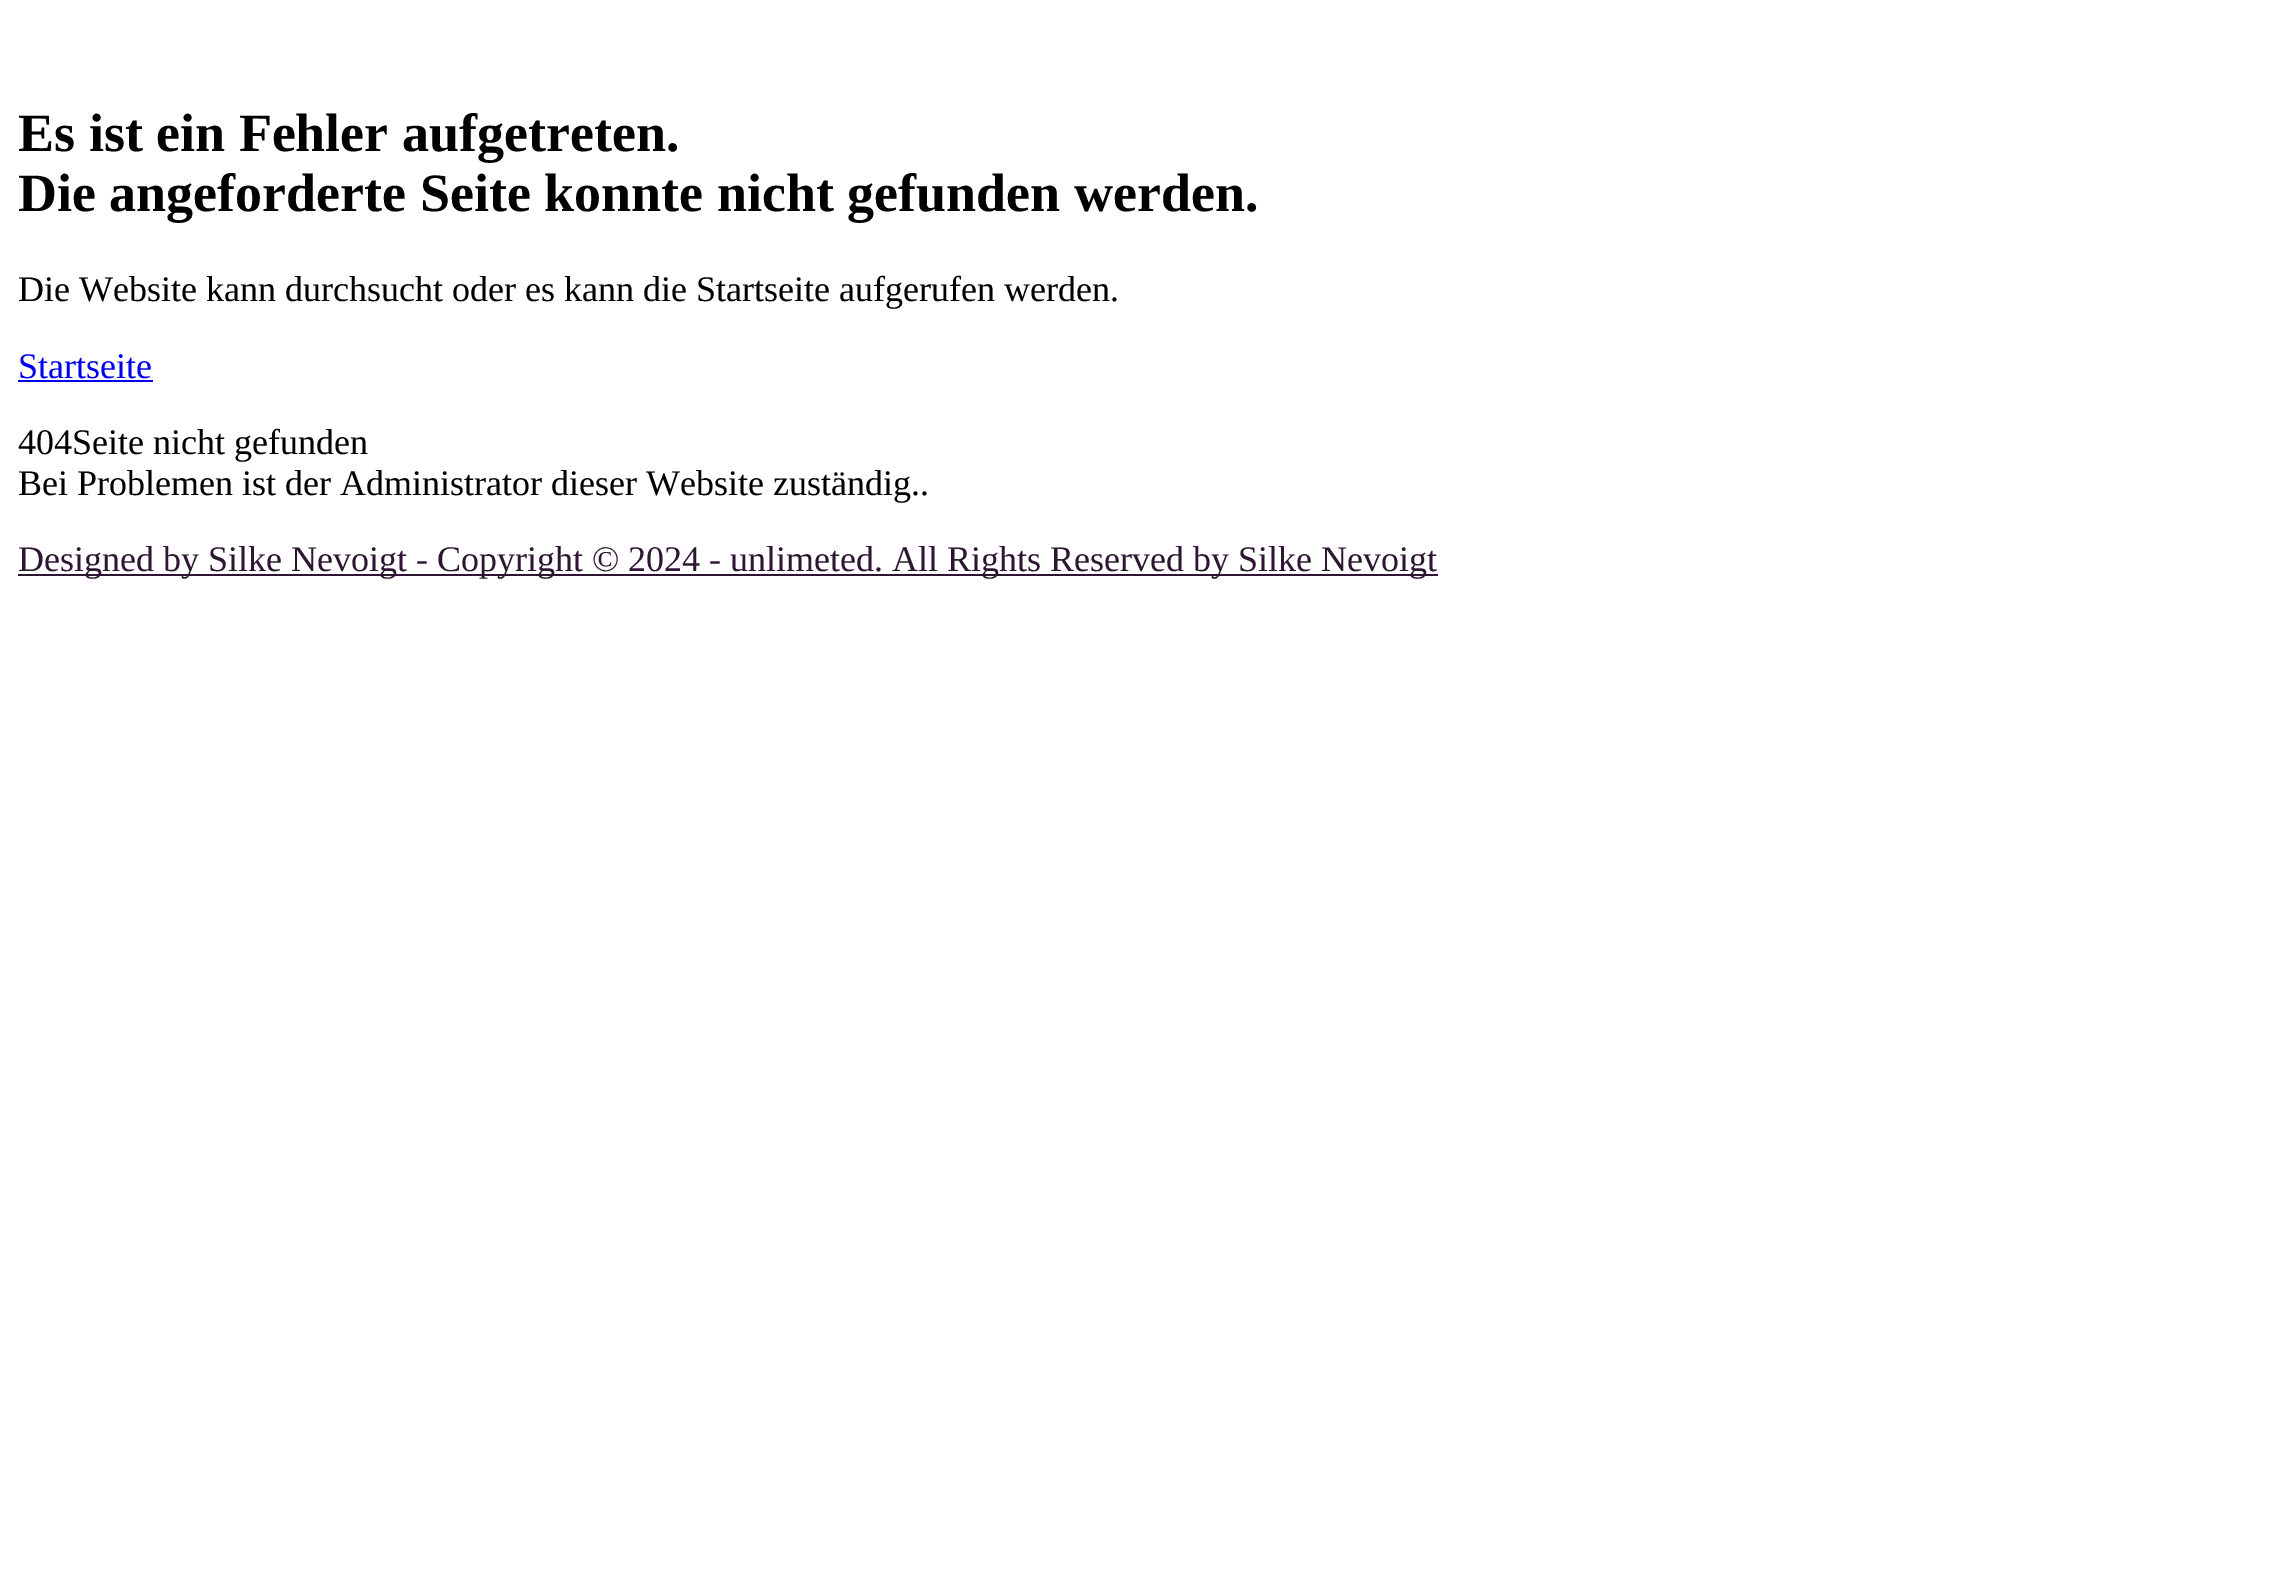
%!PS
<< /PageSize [2290 1582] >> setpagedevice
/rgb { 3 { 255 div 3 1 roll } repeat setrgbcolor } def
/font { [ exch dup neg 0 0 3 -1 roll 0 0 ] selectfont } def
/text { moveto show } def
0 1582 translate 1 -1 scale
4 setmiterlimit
255 255 255 rgb
0 0 2290 1582 rectfill
0 0 238 rgb
18 380 135 2 rectfill
46 21 50 rgb
18 574 1420 2 rectfill
/LiberationSerif-Bold 54 font
0 0 0 rgb
(Es ist ein Fehler aufgetreten.) 18 151 text
(Die angeforderte Seite konnte nicht gefunden werden.) 18 211 text
/LiberationSerif-Regular 36 font
(Die Website kann durchsucht oder es kann die Startseite aufgerufen werden.) 18 301 text
0 0 238 rgb
(Startseite) 18 378 text
0 0 0 rgb
(404Seite nicht gefunden) 18 454 text
(Bei Problemen ist der Administrator dieser Website zuständig..) 18 495 text
46 21 50 rgb
(Designed by Silke Nevoigt - Copyright © 2024 - unlimeted. All Rights Reserved by Silke Nevoigt) 18 571 text
showpage
